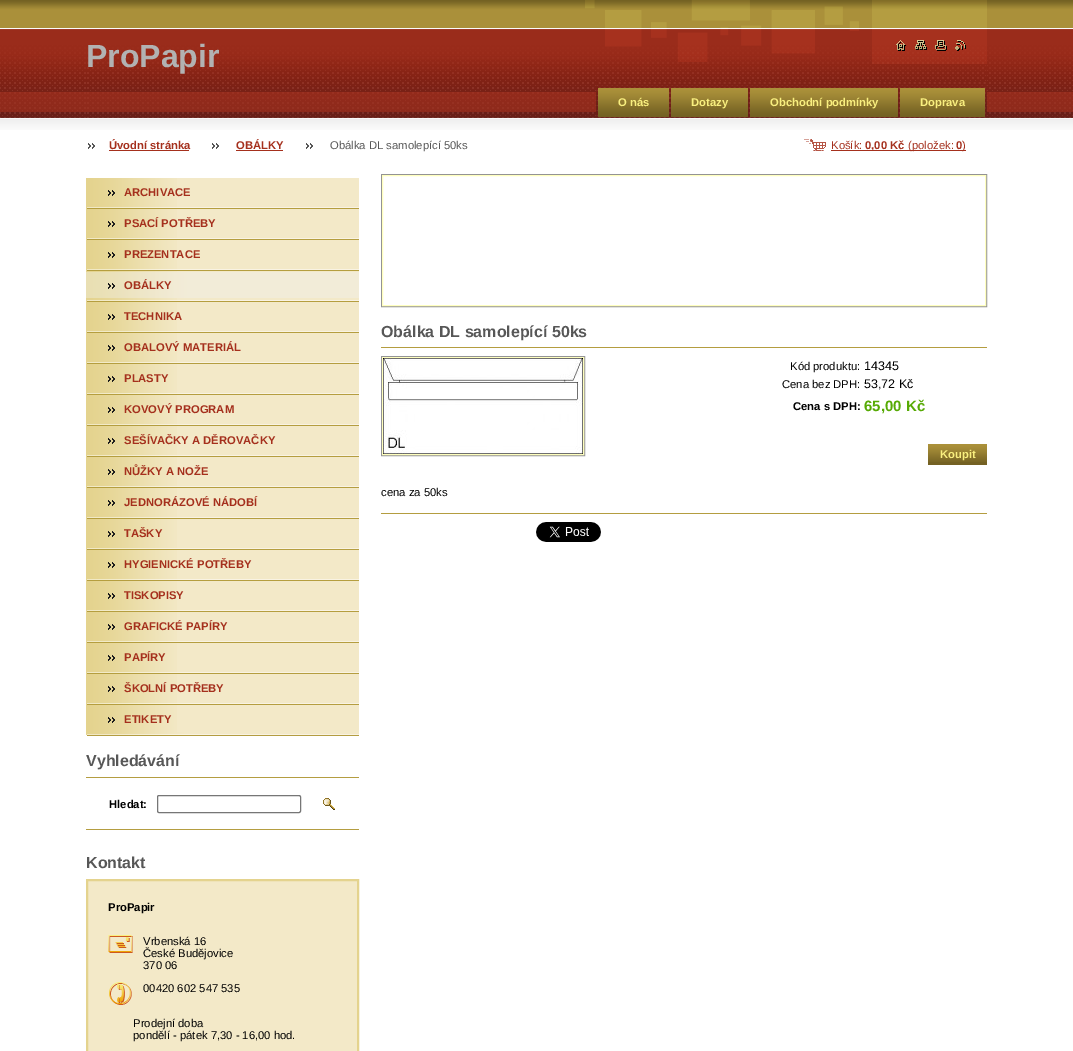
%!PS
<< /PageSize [1073 1051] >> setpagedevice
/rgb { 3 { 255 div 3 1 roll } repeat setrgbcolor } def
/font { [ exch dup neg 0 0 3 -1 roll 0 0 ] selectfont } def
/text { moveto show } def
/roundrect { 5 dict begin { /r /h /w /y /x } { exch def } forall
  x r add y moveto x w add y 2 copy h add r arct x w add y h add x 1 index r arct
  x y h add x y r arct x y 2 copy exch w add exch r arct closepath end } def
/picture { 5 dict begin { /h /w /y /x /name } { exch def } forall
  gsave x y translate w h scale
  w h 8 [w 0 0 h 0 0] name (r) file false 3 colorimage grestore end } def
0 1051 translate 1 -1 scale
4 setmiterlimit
255 255 255 rgb
0 0 1073 1051 rectfill
(img_01.rgb) 0 0 1073 130 picture
(img_02.rgb) 86 0 901 118 picture
(img_03.rgb) 896 40 10 11 picture
(img_04.rgb) 915 40 12 10 picture
(img_05.rgb) 935 40 12 11 picture
(img_06.rgb) 955 40 11 11 picture
(img_07.rgb) 596 82 391 36 picture
(img_08.rgb) 598 88 71 29 picture
(img_09.rgb) 671 88 77 29 picture
(img_10.rgb) 750 88 148 29 picture
(img_11.rgb) 900 88 85 29 picture
(img_12.rgb) 86 118 901 12 picture
(img_13.rgb) 88 143 7 6 picture
165 48 29 rgb
109 150 80 1 rectfill
(img_13.rgb) 212 143 7 6 picture
236 150 47 1 rectfill
(img_13.rgb) 306 143 7 6 picture
(img_14.rgb) 804 139 22 12 picture
831 150 73 1 rectfill
904 150 62 1 rectfill
243 233 200 rgb
177 178 182 554 rectfill
(img_15.rgb) 86 178 91 554 picture
(img_16.rgb) 108 190 7 6 picture
(img_17.rgb) 87 207 272 2 picture
(img_16.rgb) 108 221 7 6 picture
(img_17.rgb) 87 238 272 2 picture
(img_16.rgb) 108 252 7 6 picture
(img_17.rgb) 87 269 272 2 picture
(img_19.rgb) 86 272 273 26 picture
(img_18.rgb) 108 283 7 6 picture
(img_17.rgb) 87 300 272 2 picture
(img_16.rgb) 108 314 7 6 picture
(img_17.rgb) 87 331 272 2 picture
(img_16.rgb) 108 345 7 6 picture
(img_17.rgb) 87 362 272 2 picture
(img_16.rgb) 108 376 7 6 picture
(img_17.rgb) 87 393 272 2 picture
(img_16.rgb) 108 407 7 6 picture
(img_17.rgb) 87 424 272 2 picture
(img_16.rgb) 108 438 7 6 picture
(img_17.rgb) 87 455 272 2 picture
(img_16.rgb) 108 469 7 6 picture
(img_17.rgb) 87 486 272 2 picture
(img_16.rgb) 108 500 7 6 picture
(img_17.rgb) 87 517 272 2 picture
(img_16.rgb) 108 531 7 6 picture
(img_17.rgb) 87 548 272 2 picture
(img_16.rgb) 108 562 7 6 picture
(img_17.rgb) 87 579 272 2 picture
(img_16.rgb) 108 593 7 6 picture
(img_17.rgb) 87 610 272 2 picture
(img_16.rgb) 108 624 7 6 picture
(img_17.rgb) 87 641 272 2 picture
(img_16.rgb) 108 655 7 6 picture
(img_17.rgb) 87 672 272 2 picture
(img_16.rgb) 108 686 7 6 picture
(img_17.rgb) 87 703 272 2 picture
(img_16.rgb) 108 717 7 6 picture
(img_20.rgb) 86 732 273 4 picture
180 157 65 rgb
86 777 273 1 rectfill
86 829 273 1 rectfill
118 118 118 rgb
157.5 795.5 143 17 1.5 roundrect stroke
(img_21.rgb) 323 798 12 12 picture
243 233 200 rgb
87 880 moveto 271 0 rlineto 0 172 rlineto -271 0 rlineto closepath gsave fill grestore
228 211 142 rgb
2 setlinewidth
stroke
(img_22.rgb) 108 935 25 18 picture
(img_23.rgb) 109 982 23 23 picture
147 147 147 rgb
1 setlinewidth
381.5 174.5 605 132 rectstroke
255 255 190 rgb
382.5 175.5 603 130 rectstroke
180 157 64 rgb
381 347 606 1 rectfill
381 513 606 1 rectfill
148 148 150 rgb
381.5 356.5 203 99 rectstroke
255 255 190 rgb
382.5 357.5 201 97 rectstroke
(img_24.rgb) 383 358 200 96 picture
116 97 35 rgb
928 462 59 3 rectfill
(img_25.rgb) 928 444 59 18 picture
(img_26.rgb) 536 522 65 20 picture
/LiberationSans-Bold 32 font
178 178 178 rgb
(ProPapir) 86 67 text
/LiberationSans-Bold 11.25 font
249 239 127 rgb
(O nás) 618 106 text
(Dotazy) 691 106 text
(Obchodní podmínky) 770 106 text
(Doprava) 920 106 text
165 48 29 rgb
(Úvodní stránka) 109 149 text
(OBÁLKY) 236 149 text
/LiberationSans-Regular 11.25 font
87 87 87 rgb
(Obálka DL samolepící 50ks) 330 149 text
165 48 29 rgb
(Košík:) 831 149 text
/LiberationSans-Bold 11.25 font
(0,00 Kč) 865 149 text
/LiberationSans-Regular 11.25 font
(\(položek:) 908 149 text
/LiberationSans-Bold 11.25 font
(0) 956 149 text
/LiberationSans-Regular 11.25 font
(\)) 962 149 text
/LiberationSans-Bold 11.25 font
(ARCHIVACE) 124 196 text
(PSACÍ POTŘEBY) 124 227 text
(PREZENTACE) 124 258 text
(OBÁLKY) 124 289 text
(TECHNIKA) 124 320 text
(OBALOVÝ MATERIÁL) 124 351 text
(PLASTY) 124 382 text
(KOVOVÝ PROGRAM) 124 413 text
(SEŠÍVAČKY A DĚROVAČKY) 124 444 text
(NŮŽKY A NOŽE) 124 475 text
(JEDNORÁZOVÉ NÁDOBÍ) 124 506 text
(TAŠKY) 124 537 text
(HYGIENICKÉ POTŘEBY) 124 568 text
(TISKOPISY) 124 599 text
(GRAFICKÉ PAPÍRY) 124 630 text
(PAPÍRY) 124 661 text
(ŠKOLNÍ POTŘEBY) 124 692 text
(ETIKETY) 124 723 text
/LiberationSans-Bold 16 font
87 87 87 rgb
(Vyhledávání) 86 766 text
/LiberationSans-Bold 11.25 font
0 0 0 rgb
(Hledat:) 109 808 text
/LiberationSans-Bold 16 font
87 87 87 rgb
(Kontakt) 86 868 text
/LiberationSans-Bold 11.25 font
0 0 0 rgb
(ProPapir) 108 911 text
/LiberationSans-Regular 11.25 font
(Vrbenská 16) 143 945 text
(České Budějovice) 143 957 text
(370 06) 143 969 text
(00420 602 547 535) 143 992 text
(Prodejní doba) 133 1027 text
(pondělí - pátek 7,30 - 16,00 hod.) 133 1039 text
/LiberationSans-Bold 16 font
87 87 87 rgb
(Obálka DL samolepící 50ks) 381 337 text
/LiberationSans-Regular 11.25 font
0 0 0 rgb
(Kód produktu:) 790 370 text
/LiberationSans-Regular 12.5 font
(14345) 864 370 text
/LiberationSans-Regular 11.25 font
(Cena bez DPH:) 782 388 text
/LiberationSans-Regular 12.5 font
(53,72 Kč) 864 388 text
/LiberationSans-Bold 11.25 font
(Cena s DPH:) 793 410 text
/LiberationSans-Bold 15 font
86 170 4 rgb
(65,00 Kč) 864 411 text
/LiberationSans-Bold 11.25 font
249 239 127 rgb
(Koupit) 940 458 text
/LiberationSans-Regular 11.25 font
0 0 0 rgb
(cena za 50ks) 381 496 text
showpage
